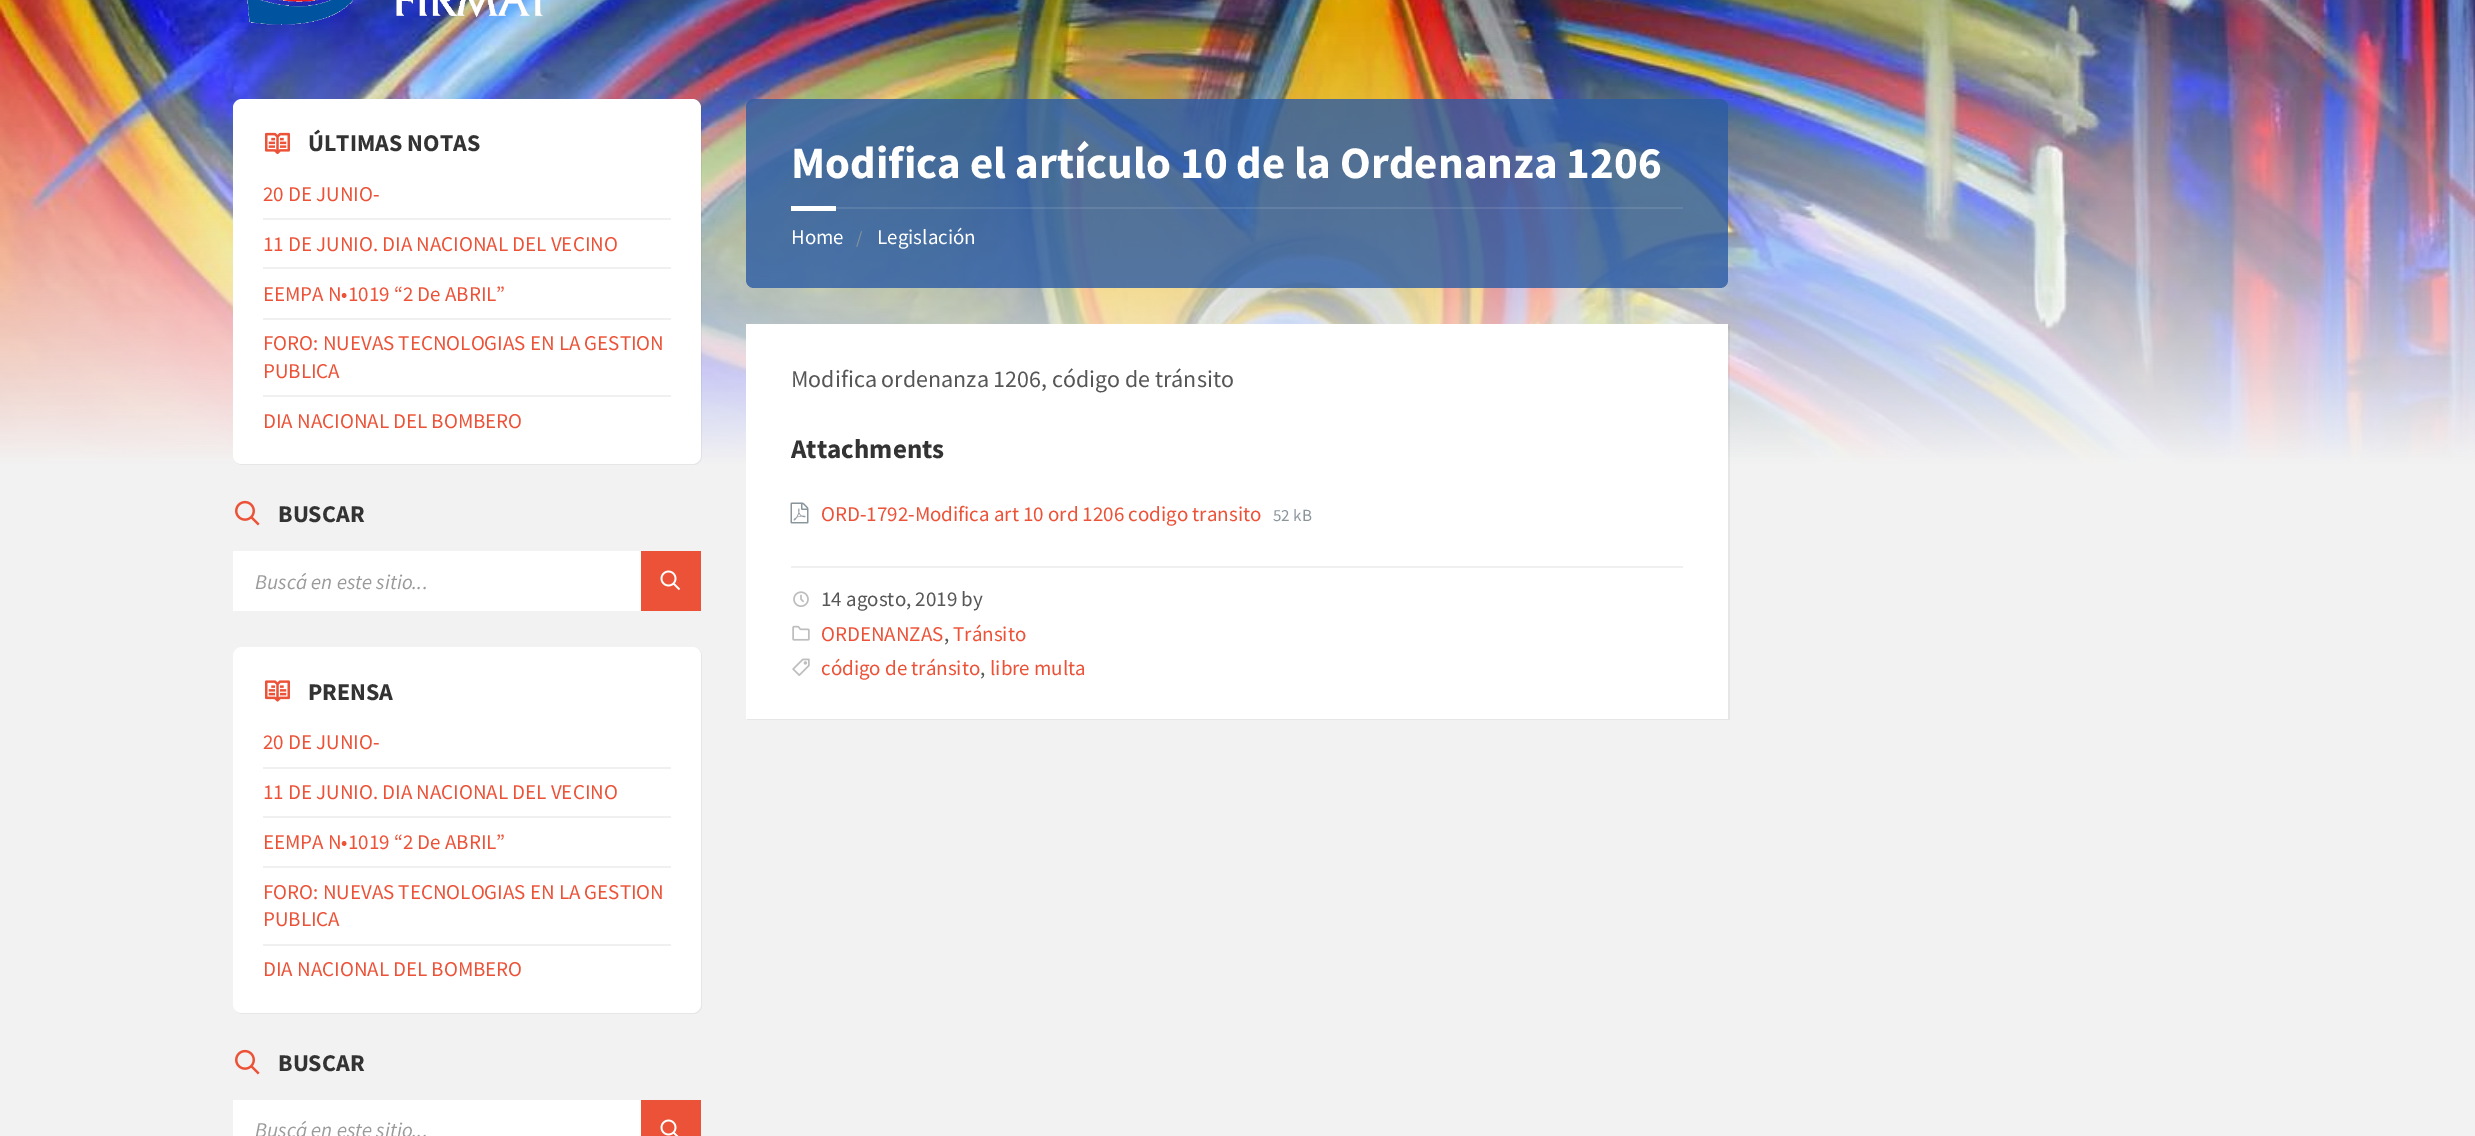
%!PS
<< /PageSize [2475 1136] /PageUsesTransparency true >> setpagedevice
/rgb { 3 { 255 div 3 1 roll } repeat setrgbcolor } def
/font { [ exch dup neg 0 0 3 -1 roll 0 0 ] selectfont } def
/text { moveto show } def
/alpha { dup .setfillconstantalpha .setstrokeconstantalpha } def
/roundrect { 5 dict begin { /r /h /w /y /x } { exch def } forall
  x r add y moveto x w add y 2 copy h add r arct x w add y h add x 1 index r arct
  x y h add x y r arct x y 2 copy exch w add exch r arct closepath end } def
/picture { 5 dict begin { /h /w /y /x /name } { exch def } forall
  gsave x y translate w h scale
  w h 8 [w 0 0 h 0 0] name (r) file false 3 colorimage grestore end } def
0 .pushpdf14devicefilter
0 1136 translate 1 -1 scale
4 setmiterlimit
242 242 242 rgb
0 0 2475 1136 rectfill
(img_01.rgb) 0 0 2475 465 picture
(img_02.rgb) 247 0 296 25 picture
0.05 alpha
0 0 0 rgb
236 462 moveto 2 2 4 3 7 3 rcurveto 450 0 rlineto 5 0 9 -4 9 -9 rcurveto 0 -346 rlineto 0 -2 -1 -5 -3 -6 rcurveto 1 1 1 2 1 4 rcurveto 0 346 rlineto 0 5 -4 10 -8 10 rcurveto -450 0 rlineto -3 0 -5 -1 -6 -2 rcurveto closepath fill
1 alpha
255 255 255 rgb
233 99 468 365 9 roundrect fill
(img_03.rgb) 265 132 25 23 picture
240 240 240 rgb
263 218 408 2 rectfill
263 267 408 2 rectfill
263 318 408 2 rectfill
263 395 408 2 rectfill
(img_04.rgb) 235 500 25 26 picture
255 255 255 rgb
233 551 408 60 rectfill
236 82 55 rgb
641 551 60 60 rectfill
(img_05.rgb) 660 570 21 21 picture
230 230 230 rgb
236 1011 moveto 2 2 4 3 7 3 rcurveto 450 0 rlineto 5 0 9 -4 9 -9 rcurveto 0 -348 rlineto 0 -3 -1 -5 -3 -7 rcurveto 1 1 1 3 1 6 rcurveto 0 348 rlineto 0 4 -4 8 -8 8 rcurveto -450 0 rlineto -3 0 -5 0 -6 -1 rcurveto closepath fill
255 255 255 rgb
233 647 468 366 9 roundrect fill
(img_06.rgb) 265 680 25 22 picture
240 240 240 rgb
263 767 408 2 rectfill
263 816 408 2 rectfill
263 866 408 2 rectfill
263 944 408 2 rectfill
(img_04.rgb) 235 1049 25 26 picture
255 255 255 rgb
233 1100 408 36 rectfill
236 82 55 rgb
641 1100 60 36 rectfill
(img_07.rgb) 660 1119 19 17 picture
0.8 alpha
43 91 164 rgb
746 99 982 189 8 roundrect fill
0.1 alpha
255 255 255 rgb
836 207 847 2 rectfill
1 alpha
791 206 45 5 rectfill
0.05 alpha
0 0 0 rgb
747 718 moveto 0 2 rlineto 983 0 rlineto 0 -394 rlineto -2 0 rlineto 0 392 rlineto closepath fill
1 alpha
255 255 255 rgb
746 324 982 395 rectfill
(img_08.rgb) 790 502 19 22 picture
240 240 240 rgb
791 566 892 2 rectfill
(img_09.rgb) 793 591 16 16 picture
(img_10.rgb) 792 625 18 16 picture
(img_11.rgb) 792 658 18 18 picture
/SourceSansPro-Bold 24 font
51 51 51 rgb
(ÚLTIMAS NOTAS) 308 151 text
/SourceSansPro-Regular 21 font
236 82 55 rgb
(20 DE JUNIO-) 263 201 text
(11 DE JUNIO. DIA NACIONAL DEL VECINO) 263 251 text
(EEMPA N•1019 “2 De ABRIL”) 263 301 text
(FORO: NUEVAS TECNOLOGIAS EN LA GESTION) 263 350 text
(PUBLICA) 263 378 text
(DIA NACIONAL DEL BOMBERO) 263 428 text
/SourceSansPro-Bold 24 font
51 51 51 rgb
(BUSCAR) 278 522 text
/SourceSansPro-Italic 21 font
154 154 154 rgb
(Buscá en este sitio...) 255 589 text
/SourceSansPro-Bold 24 font
51 51 51 rgb
(PRENSA) 308 700 text
/SourceSansPro-Regular 21 font
236 82 55 rgb
(20 DE JUNIO-) 263 749 text
(11 DE JUNIO. DIA NACIONAL DEL VECINO) 263 799 text
(EEMPA N•1019 “2 De ABRIL”) 263 849 text
(FORO: NUEVAS TECNOLOGIAS EN LA GESTION) 263 899 text
(PUBLICA) 263 926 text
(DIA NACIONAL DEL BOMBERO) 263 976 text
/SourceSansPro-Bold 24 font
51 51 51 rgb
(BUSCAR) 278 1071 text
/SourceSansPro-Italic 21 font
154 154 154 rgb
(Buscá en este sitio...) 255 1137 text
/SourceSansPro-Bold 45 font
255 255 255 rgb
(Modifica el artículo 10 de la Ordenanza 1206) 791 178 text
/SourceSansPro-Regular 21 font
(Home) 791 244 text
/SourceSansPro-Regular 18 font
138 148 155 rgb
(/) 856 244 text
/SourceSansPro-Regular 21 font
255 255 255 rgb
(Legislación) 877 244 text
/SourceSansPro-Regular 24 font
86 86 86 rgb
(Modifica ordenanza 1206, código de tránsito) 791 387 text
/SourceSansPro-Bold 27 font
51 51 51 rgb
(Attachments) 791 458 text
/SourceSansPro-Regular 21 font
236 82 55 rgb
(ORD-1792-Modifica art 10 ord 1206 codigo transito) 821 521 text
/SourceSansPro-Regular 17 font
138 148 155 rgb
(52 kB) 1273 521 text
/SourceSansPro-Regular 21 font
86 86 86 rgb
(14 agosto, 2019 by) 821 606 text
236 82 55 rgb
(ORDENANZAS) 821 641 text
86 86 86 rgb
(,) 944 641 text
236 82 55 rgb
(Tránsito) 953 641 text
(código de tránsito) 821 675 text
86 86 86 rgb
(,) 980 675 text
236 82 55 rgb
(libre multa) 990 675 text
.poppdf14devicefilter showpage
